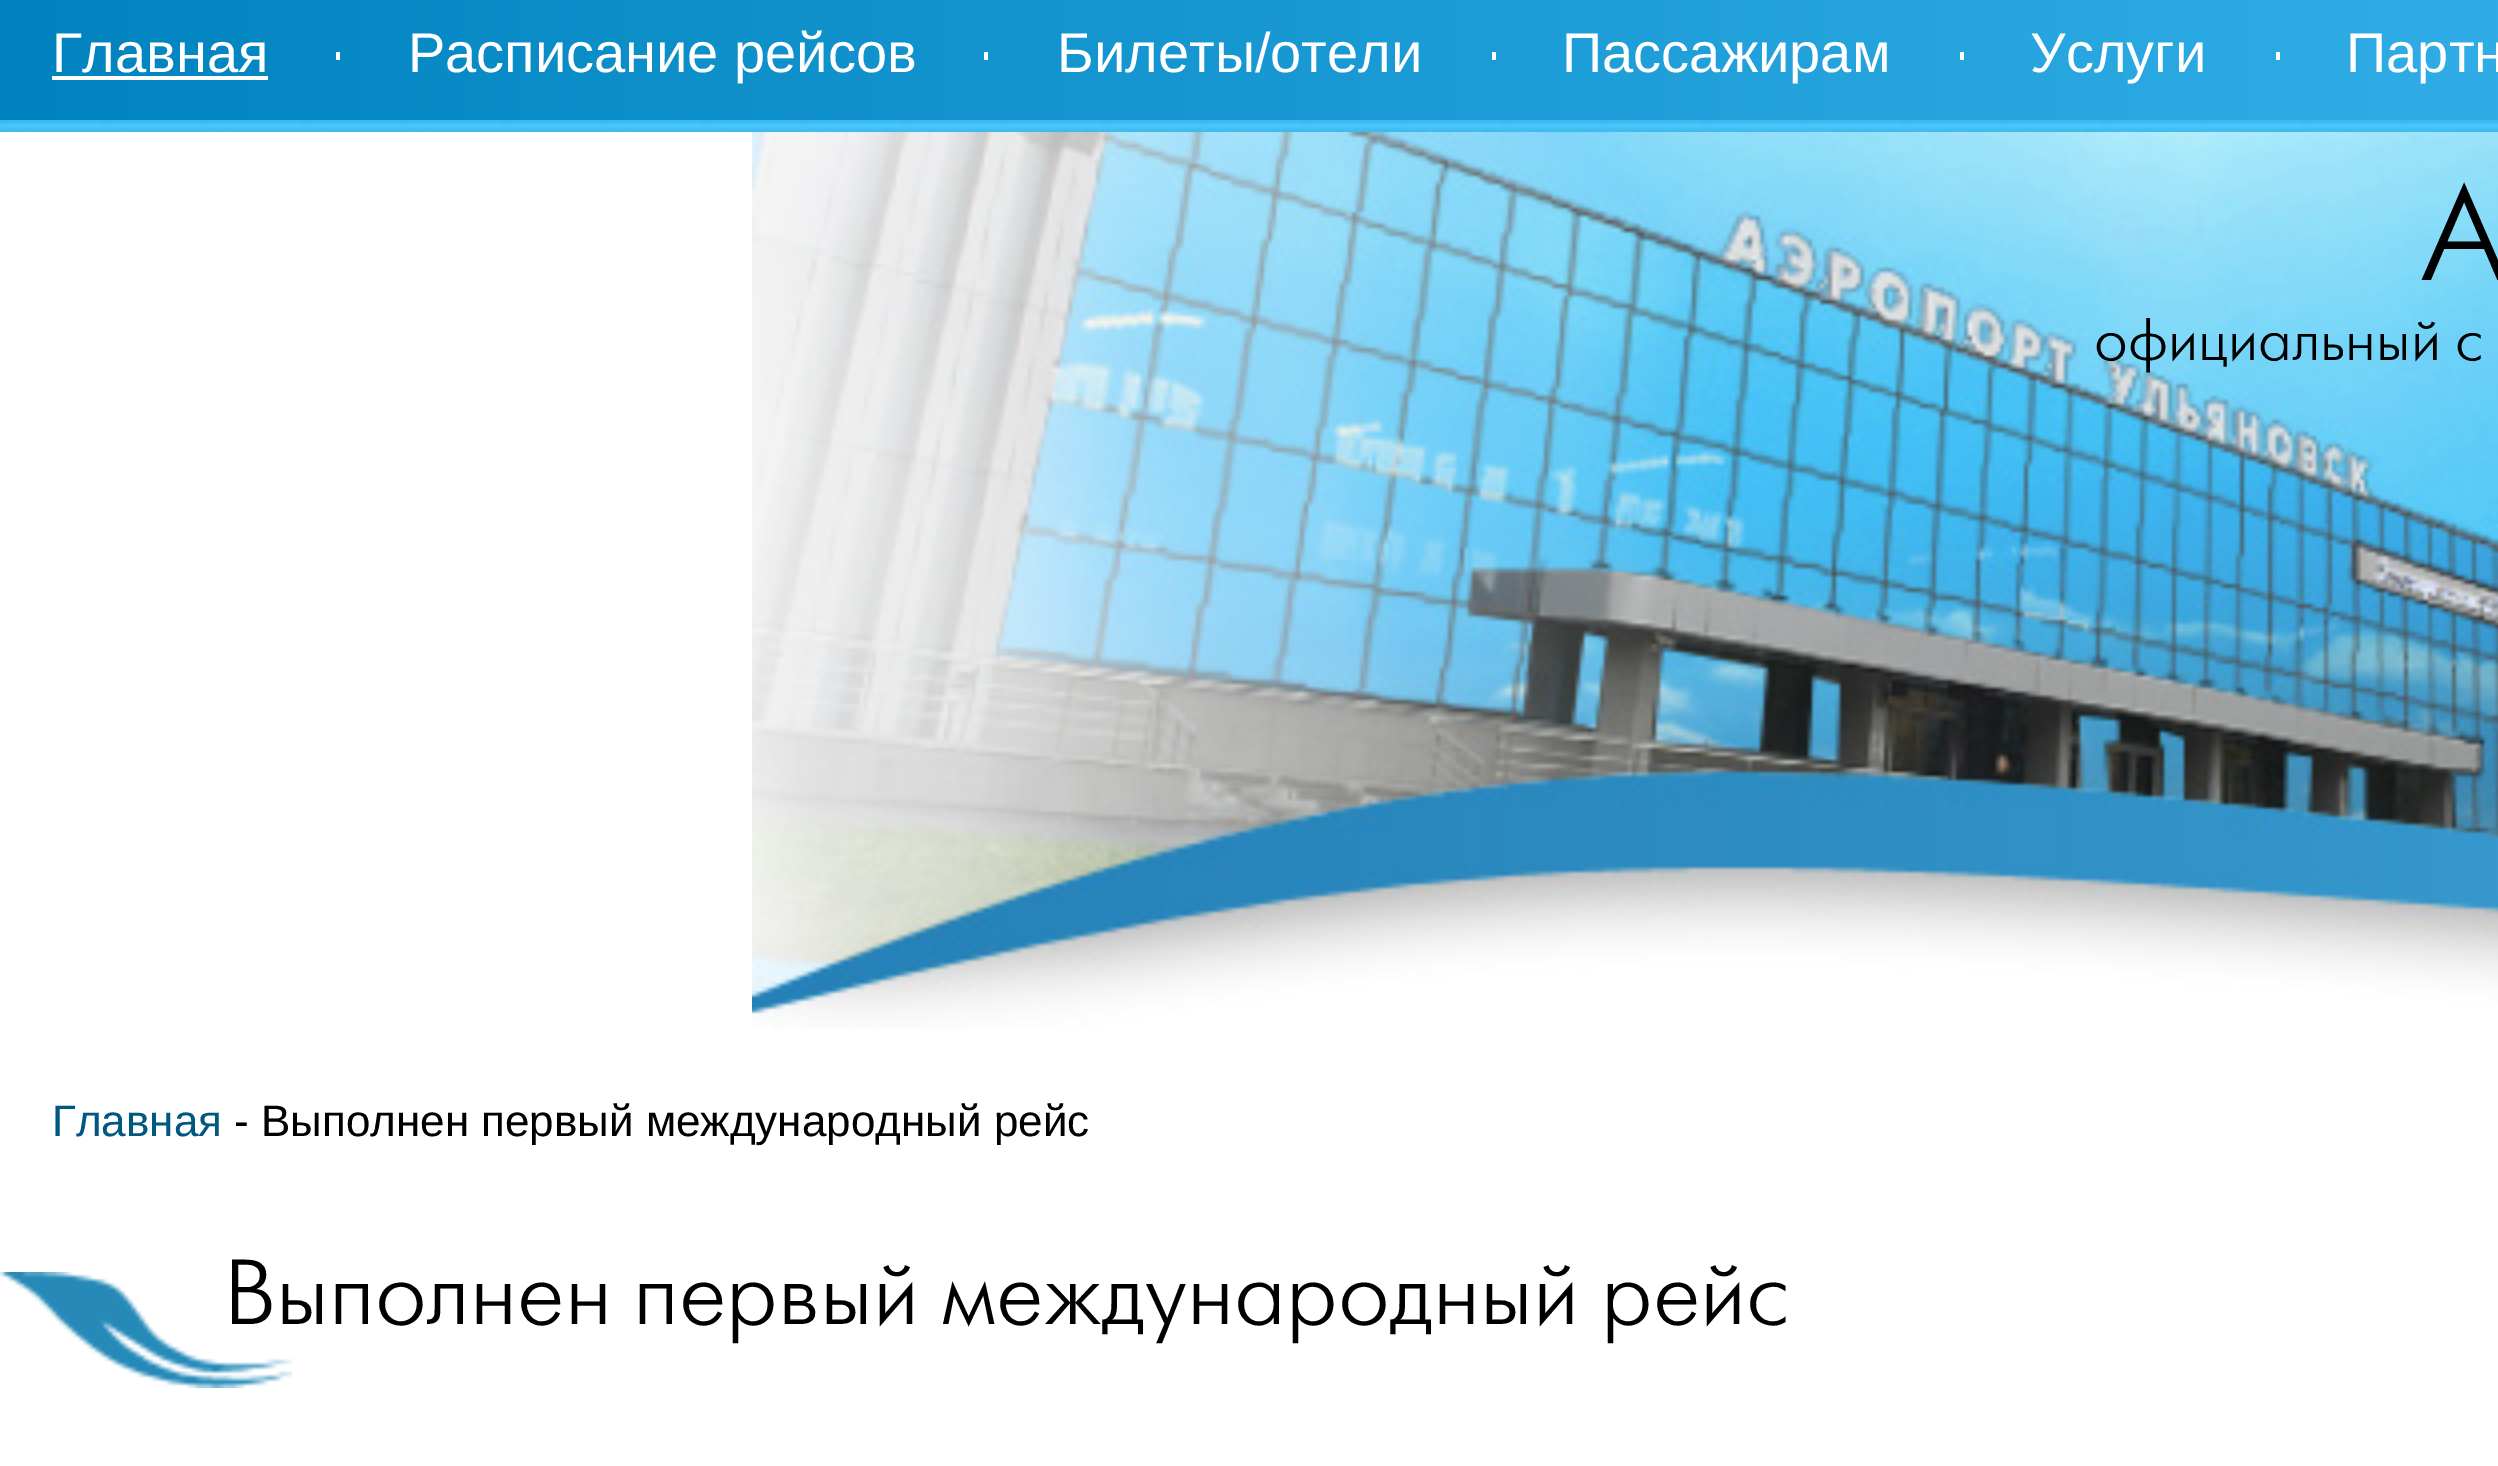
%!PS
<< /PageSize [2498 1466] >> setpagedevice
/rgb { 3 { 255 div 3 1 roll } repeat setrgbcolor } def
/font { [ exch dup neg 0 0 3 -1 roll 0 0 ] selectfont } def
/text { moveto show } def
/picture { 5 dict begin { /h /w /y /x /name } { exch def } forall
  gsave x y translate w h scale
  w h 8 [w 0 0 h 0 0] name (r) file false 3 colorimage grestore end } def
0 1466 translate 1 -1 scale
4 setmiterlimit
255 255 255 rgb
0 0 2498 1466 rectfill
(img_01.rgb) 0 120 2498 12 picture
gsave 0 0 moveto 2498 0 rlineto 0 120 rlineto -2498 0 rlineto closepath clip newpath
<< /ShadingType 2 /ColorSpace /DeviceRGB /Coords [0 60 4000 60] /Extend [true true] /Function << /FunctionType 2 /Domain [0 1] /C0 [0 0.514 0.749] /C1 [0.302 0.78 1] /N 1 >> >> shfill grestore
52 76 216 4 rectfill
336 52 4 8 rectfill
984 52 4 8 rectfill
1492 52 4 8 rectfill
1960 52 4 8 rectfill
2276 52 4 8 rectfill
(img_02.rgb) 752 132 1746 897 picture
(img_03.rgb) 0 1272 292 116 picture
/LiberationSans-Regular 56 font
(Главная) 52 72 text
(Расписание рейсов) 408 72 text
(Билеты/отели) 1057 72 text
(Пассажирам) 1562 72 text
(Услуги) 2030 72 text
(Партн) 2346 72 text
/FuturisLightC-Light 136 font
0 0 0 rgb
(А) 2420 280 text
/FuturisLightC-Light 60 font
(официальный с) 2094 360 text
/LiberationSans-Regular 44 font
0 87 128 rgb
(Главная) 52 1136 text
0 0 0 rgb
(- Выполнен первый международный рейс) 234 1136 text
/FuturisLightC-Light 92 font
(Выполнен первый международный рейс) 224 1324 text
showpage
